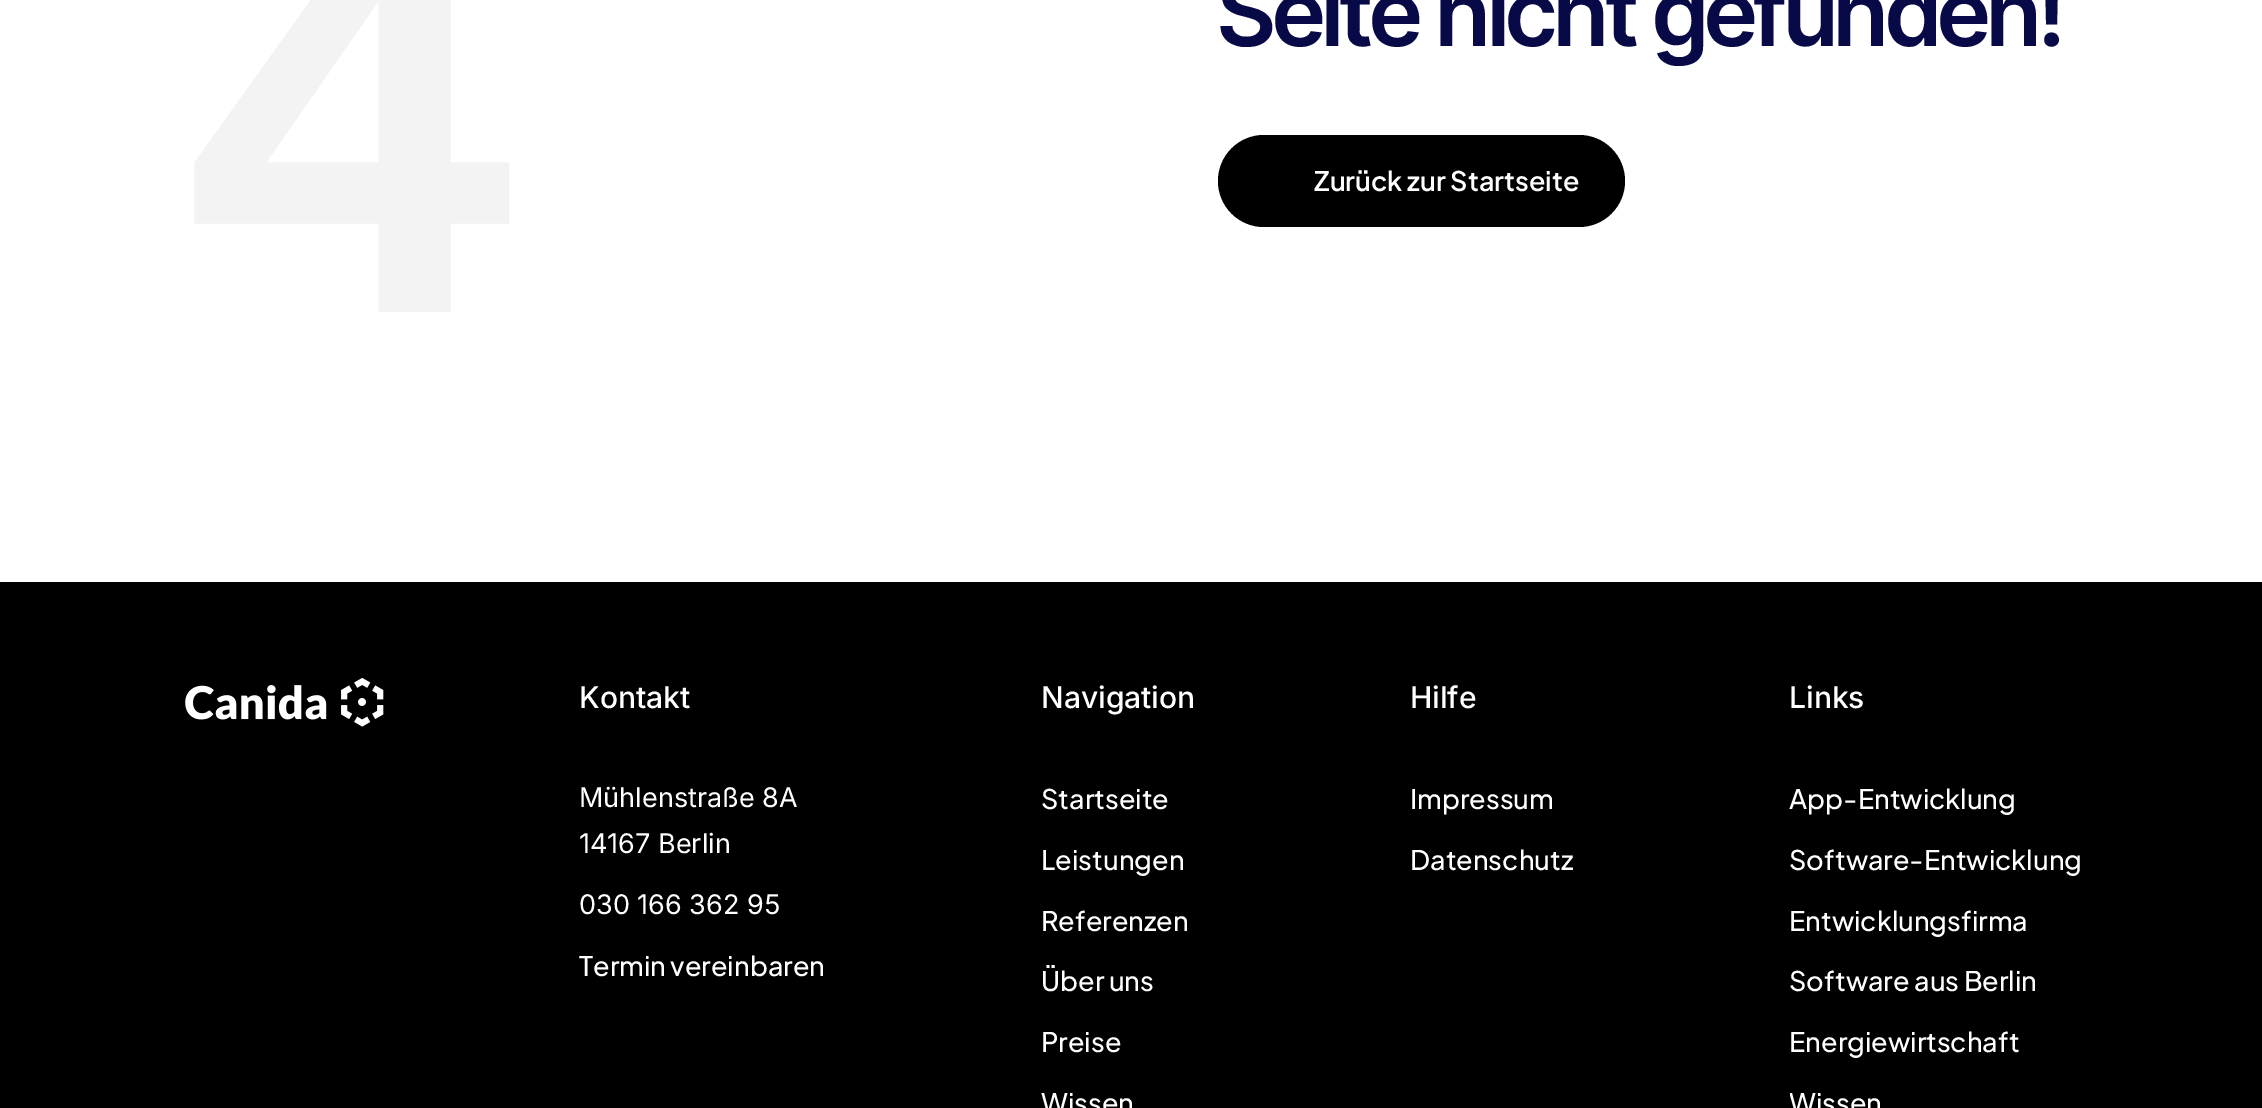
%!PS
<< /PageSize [2262 1108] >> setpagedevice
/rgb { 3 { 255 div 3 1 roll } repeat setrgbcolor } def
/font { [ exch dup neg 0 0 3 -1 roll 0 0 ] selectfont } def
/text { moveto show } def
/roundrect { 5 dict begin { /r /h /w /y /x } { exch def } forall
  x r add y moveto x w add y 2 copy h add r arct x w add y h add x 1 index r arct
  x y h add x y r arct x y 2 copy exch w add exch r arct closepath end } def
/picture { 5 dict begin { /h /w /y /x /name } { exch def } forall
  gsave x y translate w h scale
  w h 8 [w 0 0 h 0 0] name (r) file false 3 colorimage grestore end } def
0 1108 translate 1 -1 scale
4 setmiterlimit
255 255 255 rgb
0 0 2262 1108 rectfill
0 0 0 rgb
1218 135 407 92 46 roundrect fill
0 582 2262 526 rectfill
(img_01.rgb) 185 677 199 50 picture
/PlusJakartaSans-Bold 540 font
243 243 243 rgb
175 312 moveto -38 0 (4) ashow
/InterTight-SemiBold 93 font
8 10 71 rgb
1218 46 moveto -2.25 0 (Seite nicht gefunden!) ashow
/PlusJakartaSans-SemiBold 27 font
255 255 255 rgb
(Zurück zur Startseite) 1314 191 text
/Inter-Medium 30 font
(Kontakt) 579 708 text
/Inter-Regular 27 font
(Mühlenstraße 8A) 579 807 text
(14167 Berlin) 579 853 text
(030 166 362 95) 579 914 text
/PlusJakartaSans-Medium 27 font
(Termin vereinbaren) 579 976 text
/Inter-Medium 30 font
(Navigation) 1041 708 text
/PlusJakartaSans-Medium 27 font
(Startseite) 1041 809 text
(Leistungen) 1041 870 text
(Referenzen) 1041 931 text
(Über uns) 1041 991 text
(Preise) 1041 1052 text
(Wissen) 1041 1113 text
/Inter-Medium 30 font
(Hilfe) 1410 708 text
/PlusJakartaSans-Medium 27 font
(Impressum) 1410 809 text
(Datenschutz) 1410 870 text
/Inter-Medium 30 font
(Links) 1789 708 text
/PlusJakartaSans-Medium 27 font
(App-Entwicklung) 1789 809 text
(Software-Entwicklung) 1789 870 text
(Entwicklungsfirma) 1789 931 text
(Software aus Berlin) 1789 991 text
(Energiewirtschaft) 1789 1052 text
gsave
1790 776 292 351 rectclip
(Wissen) 1789 1113 text
grestore
showpage
